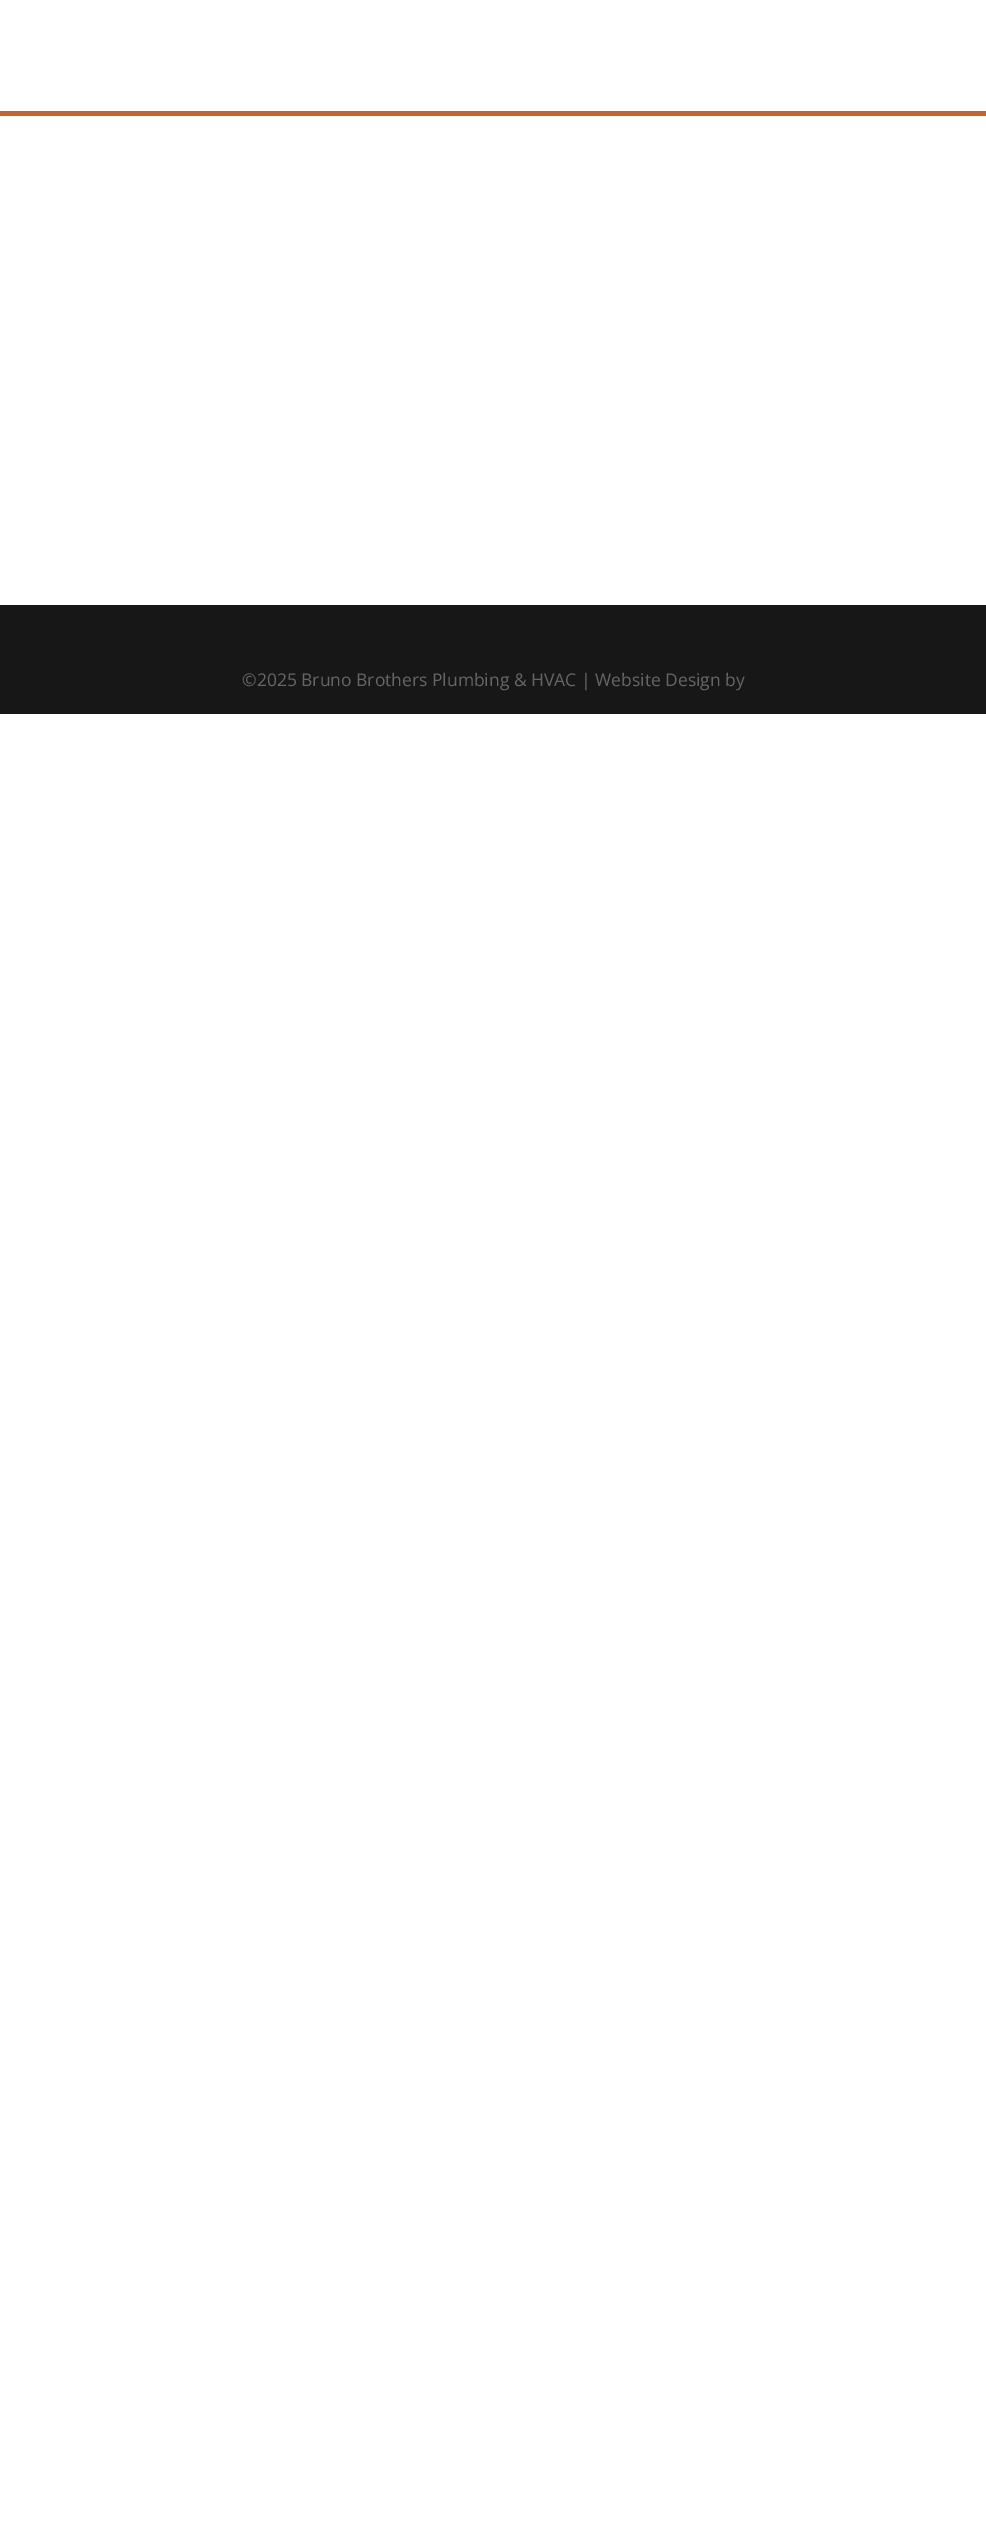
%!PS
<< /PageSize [986 2535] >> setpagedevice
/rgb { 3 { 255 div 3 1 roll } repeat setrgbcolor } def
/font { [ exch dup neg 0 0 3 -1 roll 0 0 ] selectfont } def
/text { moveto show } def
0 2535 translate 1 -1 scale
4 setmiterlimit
255 255 255 rgb
0 0 986 2535 rectfill
202 96 43 rgb
0 111 986 5 rectfill
23 23 23 rgb
0 605 986 109 rectfill
/OpenSans-Regular 17.5 font
102 102 102 rgb
(©2025 Bruno Brothers Plumbing & HVAC | Website Design by) 242 686 text
showpage
